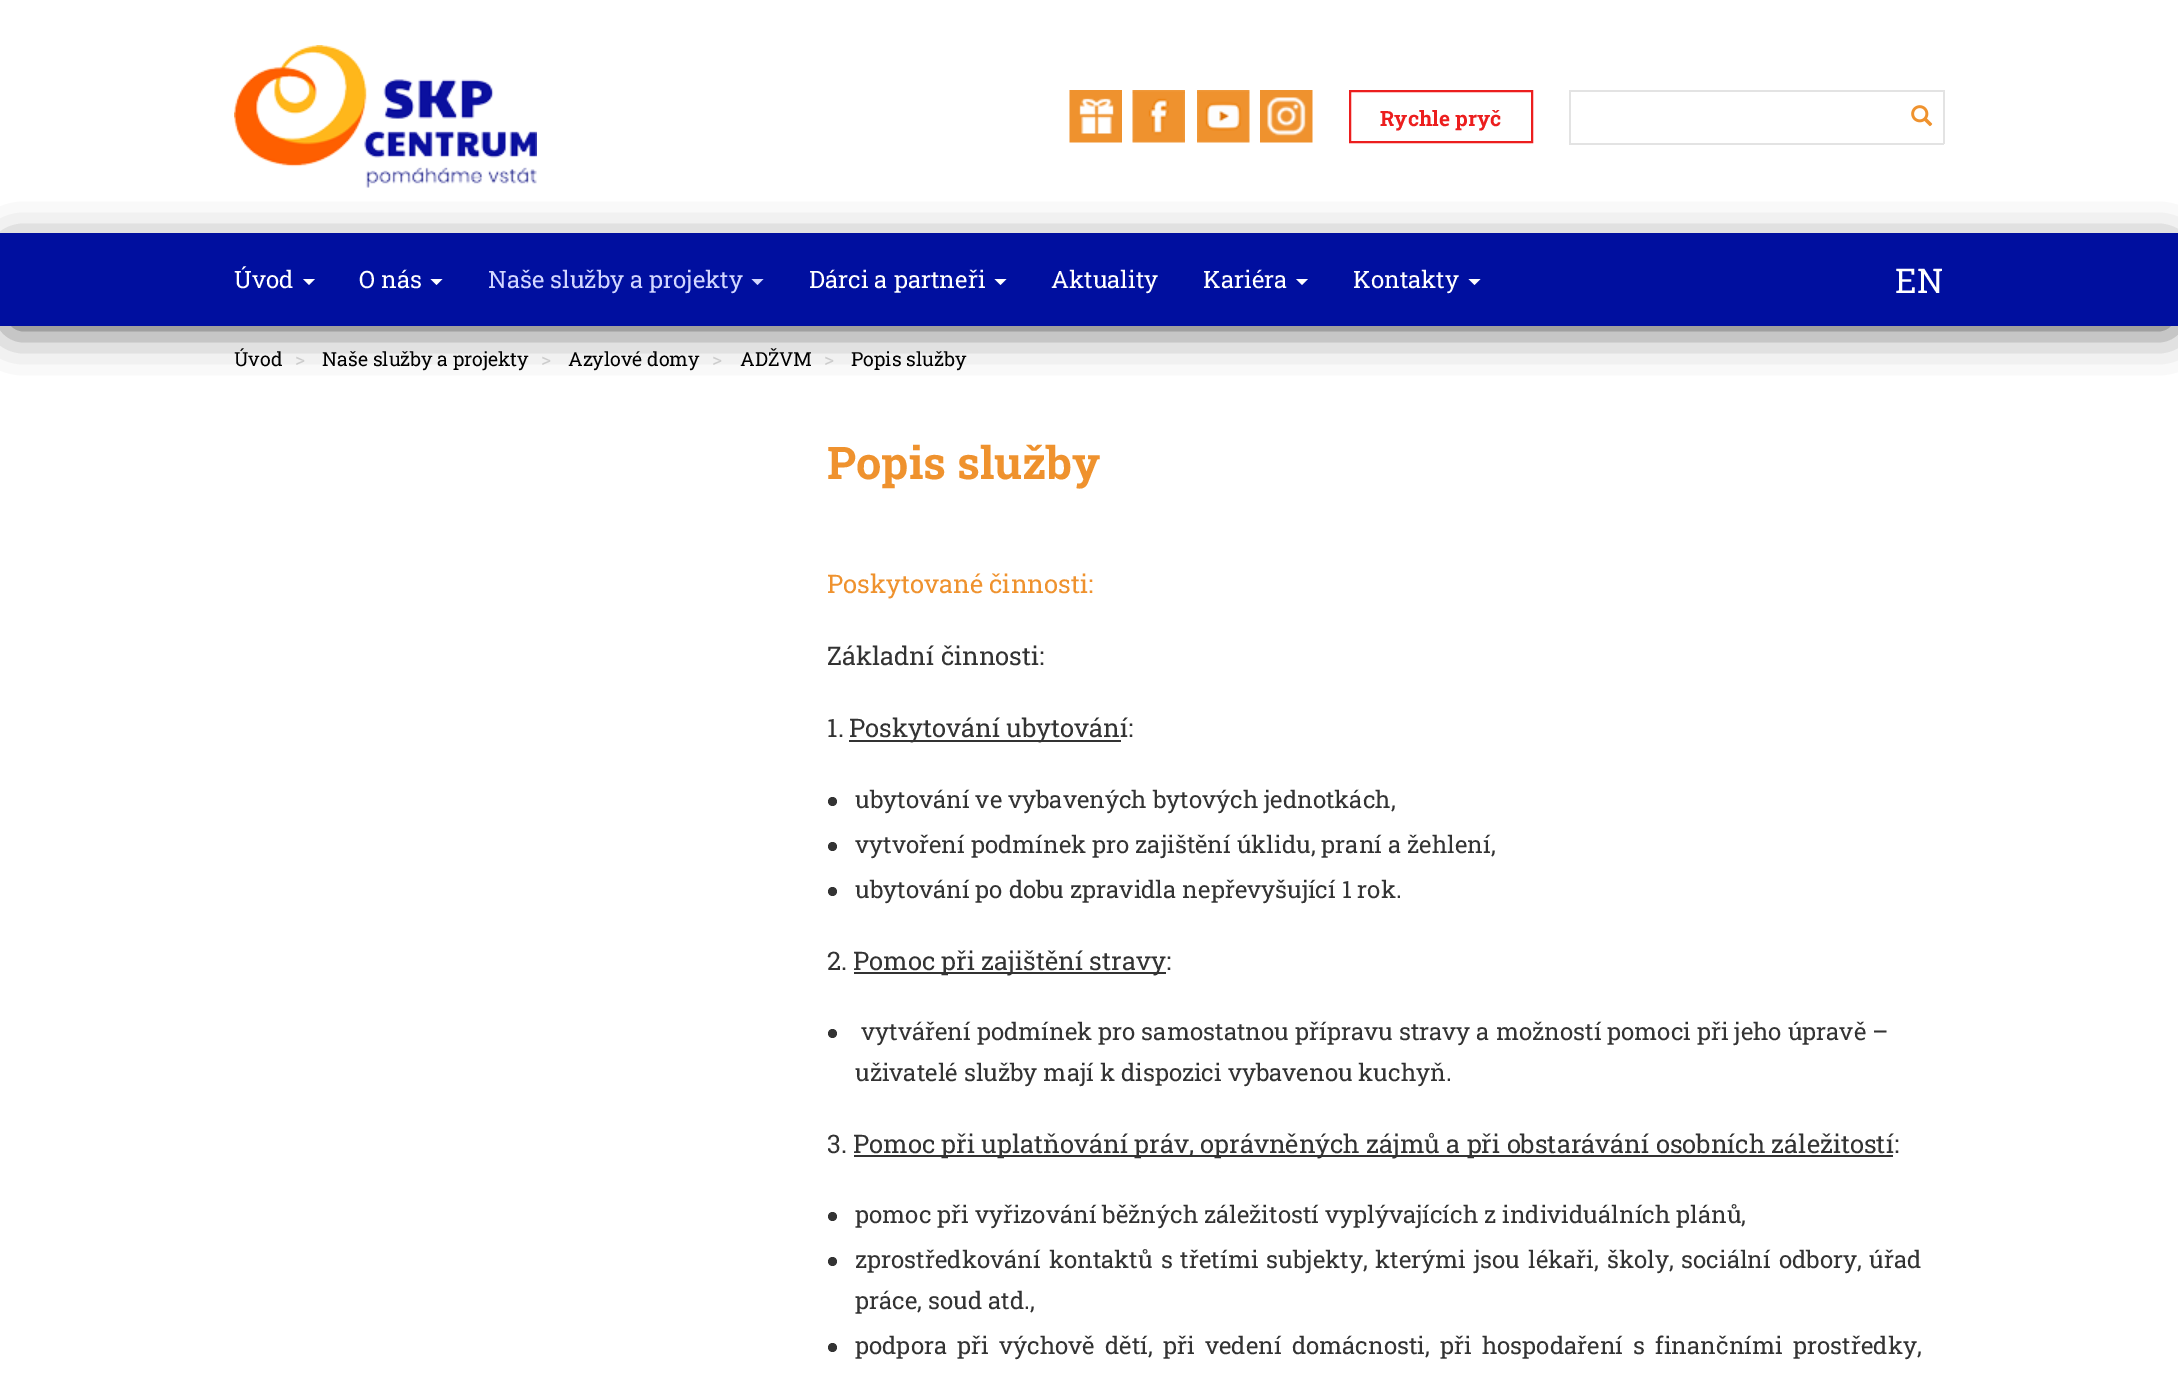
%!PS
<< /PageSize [2178 1389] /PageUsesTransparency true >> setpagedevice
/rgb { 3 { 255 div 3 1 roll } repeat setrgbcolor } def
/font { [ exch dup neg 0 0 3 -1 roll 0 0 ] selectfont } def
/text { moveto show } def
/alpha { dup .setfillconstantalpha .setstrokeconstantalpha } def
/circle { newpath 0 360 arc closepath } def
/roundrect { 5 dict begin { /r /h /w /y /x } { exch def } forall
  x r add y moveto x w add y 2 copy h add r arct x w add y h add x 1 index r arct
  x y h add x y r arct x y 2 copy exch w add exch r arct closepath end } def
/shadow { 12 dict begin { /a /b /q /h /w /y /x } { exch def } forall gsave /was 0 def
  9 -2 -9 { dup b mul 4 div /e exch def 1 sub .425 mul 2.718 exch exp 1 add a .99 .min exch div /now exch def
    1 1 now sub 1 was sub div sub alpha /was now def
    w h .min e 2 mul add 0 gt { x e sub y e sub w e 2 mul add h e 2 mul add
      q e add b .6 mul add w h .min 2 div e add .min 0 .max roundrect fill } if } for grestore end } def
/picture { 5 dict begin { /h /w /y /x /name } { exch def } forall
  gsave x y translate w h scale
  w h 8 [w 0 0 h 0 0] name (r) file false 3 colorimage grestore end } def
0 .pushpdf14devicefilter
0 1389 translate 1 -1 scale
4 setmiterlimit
255 255 255 rgb
0 0 2178 1389 rectfill
(img_01.rgb) 234 45 303 143 picture
(img_02.rgb) 1069 90 53 53 picture
(img_03.rgb) 1132 90 53 53 picture
(img_04.rgb) 1197 90 53 53 picture
(img_05.rgb) 1260 90 53 53 picture
236 30 30 rgb
2 setlinewidth
1350 91 182 51 rectstroke
227 227 227 rgb
1569 90 375 2 rectfill
1569 143 333 2 rectfill
1569 90 2 54 rectfill
1943 90 2 54 rectfill
1901 143 43 2 rectfill
(img_06.rgb) 1911 105 22 22 picture
0 0 0 rgb
11 251 2160 75 0 22 0.75 shadow
0 15 159 rgb
0 233 2178 93 rectfill
255 255 255 rgb
303 279 moveto 12 0 rlineto -6 6 rlineto closepath fill
430.5 279 moveto 12 0 rlineto -6 6 rlineto closepath fill
210 214 255 rgb
751.5 279 moveto 12 0 rlineto -6 6 rlineto closepath fill
255 255 255 rgb
994.5 279 moveto 12 0 rlineto -6 6 rlineto closepath fill
1296 279 moveto 12 0 rlineto -6 6 rlineto closepath fill
1468.5 279 moveto 12 0 rlineto -6 6 rlineto closepath fill
51 51 51 rgb
849 740 272 2 rectfill
832.5 801.5 4.5 circle fill
832.5 846.5 4.5 circle fill
832.5 891.5 4.5 circle fill
854 972 312 2 rectfill
832.5 1033.5 4.5 circle fill
854 1155 1039 2 rectfill
832.5 1216.5 4.5 circle fill
832.5 1261.5 4.5 circle fill
832.5 1347.5 4.5 circle fill
/RobotoSlab-Bold 21 font
236 30 30 rgb
(Rychle pryč) 1380 126 text
/RobotoSlab-Regular 24 font
255 255 255 rgb
(Úvod) 234 288 text
(O nás) 359 288 text
210 214 255 rgb
(Naše služby a projekty) 488 288 text
255 255 255 rgb
(Dárci a partneři) 809 288 text
(Aktuality) 1051 288 text
(Kariéra) 1203 288 text
(Kontakty) 1353 288 text
/RobotoSlab-Regular 34 font
(EN) 1895 293 text
/RobotoSlab-Regular 19.5 font
0 0 0 rgb
(Úvod) 234 366 text
204 204 204 rgb
(>) 295 366 text
0 0 0 rgb
(Naše služby a projekty) 322 366 text
204 204 204 rgb
(>) 541 366 text
0 0 0 rgb
(Azylové domy) 568 366 text
204 204 204 rgb
(>) 712 366 text
0 0 0 rgb
(ADŽVM) 740 366 text
204 204 204 rgb
(>) 824 366 text
0 0 0 rgb
(Popis služby) 851 366 text
/RobotoSlab-Bold 45 font
239 146 46 rgb
(Popis služby) 827 479 text
/RobotoSlab-Regular 25.5 font
(Poskytované činnosti:) 827 593 text
51 51 51 rgb
(Základní činnosti:) 827 665 text
(1.) 827 737 text
(Poskytování ubytování:) 849 737 text
/RobotoSlab-Regular 24 font
(ubytování ve vybavených bytových jednotkách,) 855 808 text
(vytvoření podmínek pro zajištění úklidu, praní a žehlení,) 855 853 text
(ubytování po dobu zpravidla nepřevyšující 1 rok.) 855 898 text
/RobotoSlab-Regular 25.5 font
(2.) 827 970 text
(Pomoc při zajištění stravy:) 853 970 text
/RobotoSlab-Regular 24 font
(vytváření podmínek pro samostatnou přípravu stravy a možností pomoci při jeho úpravě –) 861 1040 text
(uživatelé služby mají k dispozici vybavenou kuchyň.) 855 1081 text
/RobotoSlab-Regular 25.5 font
(3.) 827 1153 text
(Pomoc při uplatňování práv, oprávněných zájmů a při obstarávání osobních záležitostí:) 853 1153 text
/RobotoSlab-Regular 24 font
(pomoc při vyřizování běžných záležitostí vyplývajících z individuálních plánů,) 855 1223 text
855 1268 moveto 2 0 32 (zprostředkování kontaktů s třetími subjekty, kterými jsou lékaři, školy, sociální odbory, úřad) widthshow
(práce, soud atd.,) 855 1309 text
855 1354 moveto 4.25 0 32 (podpora při výchově dětí, při vedení domácnosti, při hospodaření s finančními prostředky,) widthshow
.poppdf14devicefilter showpage
